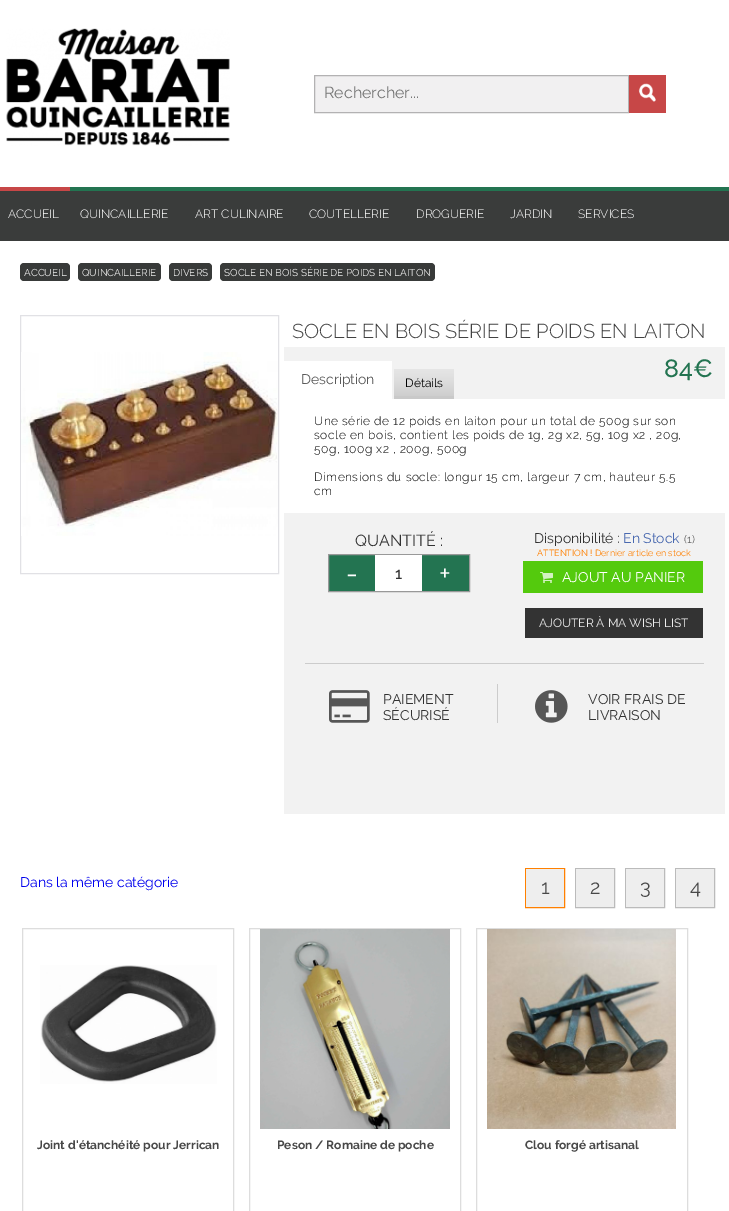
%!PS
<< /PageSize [729 1211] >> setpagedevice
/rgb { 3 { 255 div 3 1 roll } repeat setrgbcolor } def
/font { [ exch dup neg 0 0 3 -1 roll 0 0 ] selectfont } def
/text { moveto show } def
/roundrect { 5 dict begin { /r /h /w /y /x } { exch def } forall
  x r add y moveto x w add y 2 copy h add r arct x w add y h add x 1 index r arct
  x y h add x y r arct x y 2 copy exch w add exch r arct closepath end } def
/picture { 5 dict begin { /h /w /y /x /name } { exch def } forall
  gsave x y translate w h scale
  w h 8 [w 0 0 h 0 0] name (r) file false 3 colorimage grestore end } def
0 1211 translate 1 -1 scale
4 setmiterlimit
255 255 255 rgb
0 0 729 1211 rectfill
(img_01.rgb) 6 28 224 118 picture
241 240 241 rgb
314.5 75.5 moveto 314 0 rlineto 0 37 rlineto -314 0 rlineto closepath gsave fill grestore
179 178 179 rgb
stroke
199 71 71 rgb
629 75 37 38 rectfill
(img_02.rgb) 638 83 18 19 picture
35 116 81 rgb
70 187 659 4 rectfill
199 71 71 rgb
0 187 70 4 rectfill
58 60 59 rgb
0 191 729 50 rectfill
56 58 57 rgb
20 263 50 18 4 roundrect fill
78 263 83 18 4 roundrect fill
169 263 43 18 4 roundrect fill
220 263 215 18 4 roundrect fill
225 225 229 rgb
20.5 315.5 258 258 rectstroke
(img_03.rgb) 21 352 257 184 picture
242 242 242 rgb
284 347 441 52 rectfill
255 255 255 rgb
284 361 108 38 rectfill
201 201 201 rgb
394 396 60 3 rectfill
(img_04.rgb) 394 369 60 27 picture
242 242 242 rgb
284 513 441 301 rectfill
35 116 81 rgb
328.5 554.5 moveto 141 0 rlineto 0 37 rlineto -141 0 rlineto closepath gsave fill grestore
153 153 153 rgb
stroke
255 255 255 rgb
375 555 47 36 rectfill
84 202 13 rgb
523 561 180 32 rectfill
(img_05.rgb) 540 572 13 11 picture
51 51 51 rgb
525 608 178 30 rectfill
204 204 204 rgb
305 663 399 1 rectfill
(img_06.rgb) 329 690 41 33 picture
497 684 1 39 rectfill
(img_07.rgb) 535 690 33 33 picture
255 128 0 rgb
525.5 868.5 39 39 rectstroke
238 238 238 rgb
526 869 38 38 rectfill
187 187 187 rgb
575.5 868.5 39 39 rectstroke
238 238 238 rgb
576 869 38 38 rectfill
187 187 187 rgb
625.5 868.5 39 39 rectstroke
238 238 238 rgb
626 869 38 38 rectfill
187 187 187 rgb
675.5 868.5 39 39 rectstroke
238 238 238 rgb
676 869 38 38 rectfill
221 221 221 rgb
22.5 928.5 211 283 rectstroke
(img_08.rgb) 40 965 177 119 picture
249.5 928.5 211 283 rectstroke
(img_09.rgb) 260 929 190 200 picture
476.5 928.5 211 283 rectstroke
(img_10.rgb) 487 929 189 200 picture
/Raleway-Regular 16 font
117 117 117 rgb
(Rechercher...) 324 98 text
/Raleway-Light 12 font
255 255 255 rgb
(ACCUEIL) 8 218 text
(QUINCAILLERIE) 80 218 text
(ART CULINAIRE) 195 218 text
(COUTELLERIE) 309 218 text
(DROGUERIE) 416 218 text
(JARDIN) 510 218 text
(SERVICES) 578 218 text
/Raleway-Regular 10 font
238 238 238 rgb
(ACCUEIL) 24 276 text
(QUINCAILLERIE) 82 276 text
(DIVERS) 173 276 text
(SOCLE EN BOIS SÉRIE DE POIDS EN LAITON) 224 276 text
/Raleway-Light 20 font
65 65 65 rgb
(SOCLE EN BOIS SÉRIE DE POIDS EN LAITON) 292 338 text
/Raleway-Regular 14 font
90 90 90 rgb
(Description) 301 384 text
/Raleway-Regular 12 font
0 0 0 rgb
(Détails) 405 387 text
/Raleway-Medium 25 font
35 116 81 rgb
(84€) 664 377 text
/Raleway-Light 12 font
0 0 0 rgb
314 425 moveto 0.5 0 (Une série de 12 poids en laiton pour un total de 500g sur son) ashow
314 439 moveto 0.5 0 (socle en bois, contient les poids de 1g, 2g x2, 5g, 10g x2 , 20g,) ashow
314 453 moveto 0.5 0 (50g, 100g x2 , 200g, 500g) ashow
314 481 moveto 0.5 0 (Dimensions du socle: longur 15 cm, largeur 7 cm, hauteur 5.5) ashow
314 495 moveto 0.5 0 (cm) ashow
/Raleway-Regular 16 font
50 50 50 rgb
(QUANTITÉ :) 355 546 text
/Raleway-Regular 28 font
255 255 255 rgb
(-) 346 583 text
/Raleway-Medium 16 font
50 50 50 rgb
(1) 395 579 text
/Raleway-Regular 28 font
255 255 255 rgb
(+) 439 583 text
/Raleway-Regular 14 font
50 50 50 rgb
(Disponibilité :) 534 543 text
73 105 176 rgb
(En Stock) 623 543 text
/Raleway-Regular 11 font
102 102 102 rgb
(\(1\)) 684 543 text
/Raleway-Regular 9 font
255 128 0 rgb
(ATTENTION ! Dernier article en stock) 537 556 text
/Raleway-Regular 14 font
255 255 255 rgb
(AJOUT AU PANIER) 562 582 text
/Raleway-Regular 12 font
238 238 238 rgb
(AJOUTER À MA WISH LIST) 539 627 text
/Raleway-Regular 14 font
50 50 50 rgb
(PAIEMENT) 383 704 text
(SÉCURISÉ) 383 720 text
(VOIR FRAIS DE) 588 704 text
(LIVRAISON) 588 720 text
0 0 238 rgb
(Dans la même catégorie) 20 887 text
/Raleway-Regular 20 font
72 72 72 rgb
(1) 541 894 text
(2) 590 894 text
(3) 640 894 text
(4) 690 894 text
/Raleway-Bold 12 font
(Joint d'étanchéité pour Jerrican) 37 1149 text
(Peson / Romaine de poche) 277 1149 text
(Clou forgé artisanal) 525 1149 text
showpage
